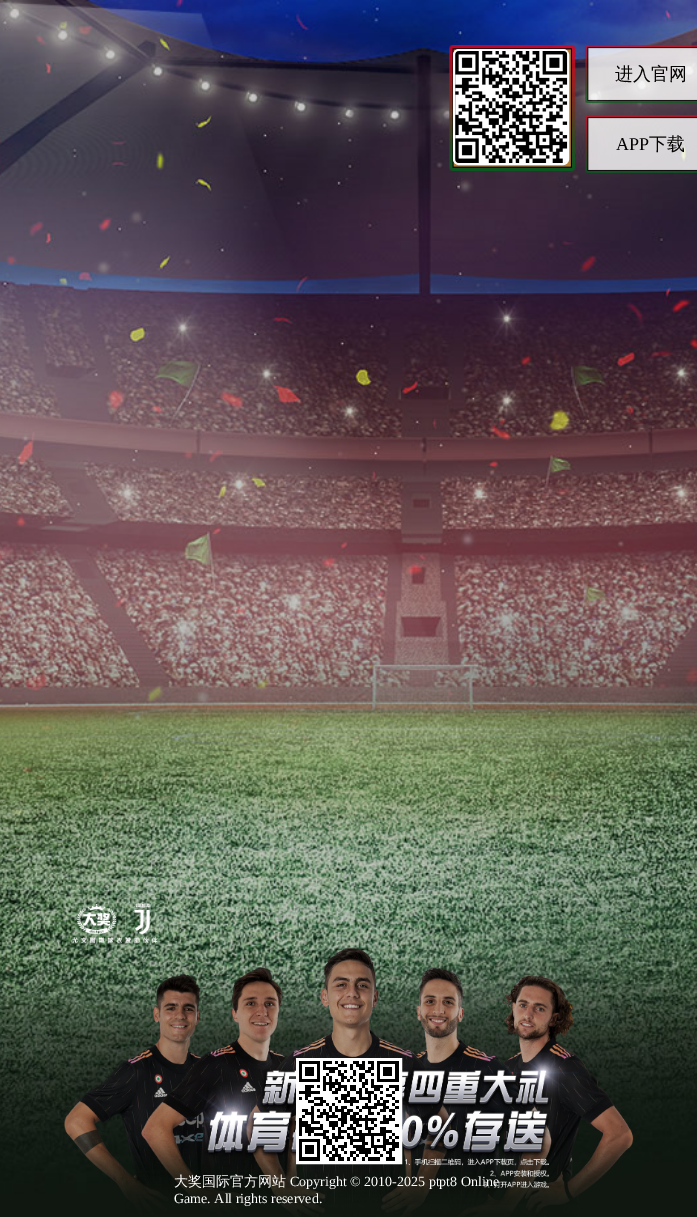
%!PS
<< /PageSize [697 1217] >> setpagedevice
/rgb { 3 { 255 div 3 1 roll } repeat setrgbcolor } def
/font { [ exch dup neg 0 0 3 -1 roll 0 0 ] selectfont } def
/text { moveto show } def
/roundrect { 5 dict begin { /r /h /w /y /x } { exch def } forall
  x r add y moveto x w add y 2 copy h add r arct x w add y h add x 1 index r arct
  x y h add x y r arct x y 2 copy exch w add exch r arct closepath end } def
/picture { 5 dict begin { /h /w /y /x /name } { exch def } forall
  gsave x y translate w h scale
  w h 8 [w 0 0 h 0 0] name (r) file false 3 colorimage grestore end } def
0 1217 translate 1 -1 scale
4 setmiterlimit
255 255 255 rgb
0 0 697 1217 rectfill
(img_01.rgb) 0 0 697 1217 picture
(img_02.rgb) 64 903 570 314 picture
(img_03.rgb) 449 45 127 126 picture
2 setlinewidth
454 50 114 114 5 roundrect stroke
(img_04.rgb) 455 51 113 112 picture
(img_05.rgb) 585 45 112 58 picture
(img_06.rgb) 585 115 112 58 picture
3 setlinewidth
297.5 1059.5 103 103 rectstroke
(img_07.rgb) 299 1061 100 100 picture
/WenQuanYiZenHei-Medium 18 font
7 5 3 rgb
(进入官网) 615 80 text
/LiberationSerif-Regular 18 font
(APP) 616 150 text
/WenQuanYiZenHei-Medium 18 font
(下载) 649 150 text
/WenQuanYiZenHei-Medium 14 font
255 255 255 rgb
(大奖国际官方网站) 174 1186 text
/LiberationSerif-Regular 14 font
(Copyright © 2010-2025 ptpt8 Online) 290 1186 text
(Game. All rights reserved.) 174 1203 text
showpage
